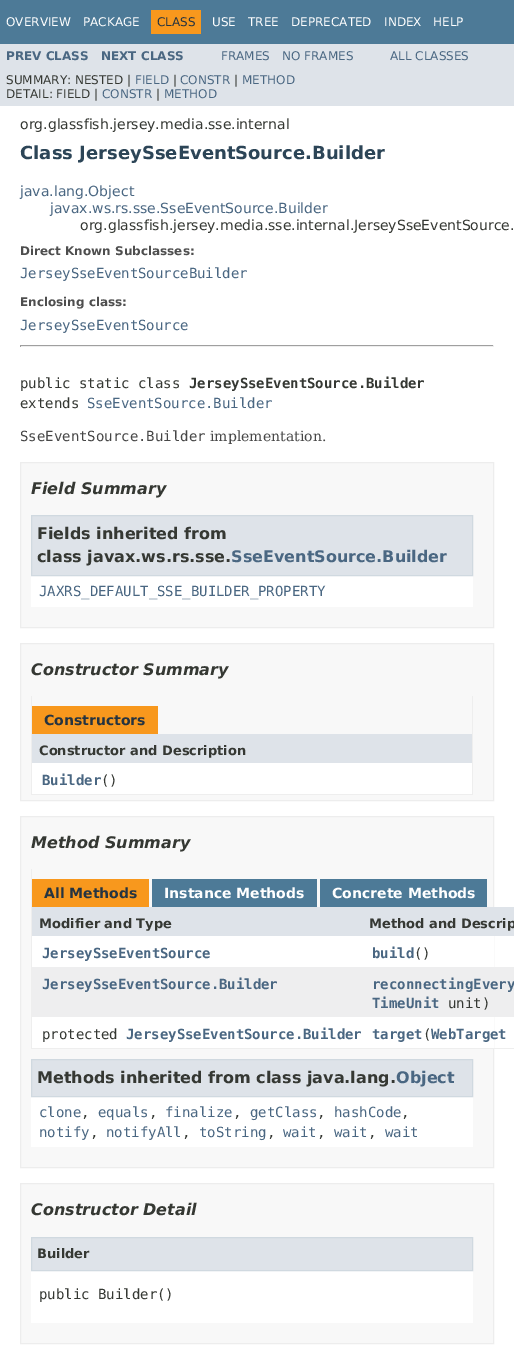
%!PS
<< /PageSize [514 1348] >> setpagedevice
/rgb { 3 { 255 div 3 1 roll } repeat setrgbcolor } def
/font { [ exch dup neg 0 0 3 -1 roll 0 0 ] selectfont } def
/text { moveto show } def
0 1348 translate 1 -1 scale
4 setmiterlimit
255 255 255 rgb
0 0 514 1348 rectfill
77 122 151 rgb
0 0 514 44 rectfill
248 152 29 rgb
151 10 50 24 rectfill
222 227 233 rgb
0 44 514 62 rectfill
159 159 159 rgb
20 345 474 1 rectfill
238 238 238 rgb
493 345 1 2 rectfill
20 346 474 1 rectfill
159 159 159 rgb
20 345 1 2 rectfill
248 248 248 rgb
20.5 462.5 moveto 473 0 rlineto 0 165 rlineto -473 0 rlineto closepath gsave fill grestore
237 237 237 rgb
stroke
255 255 255 rgb
31 576 442 31 rectfill
222 227 233 rgb
31.5 515.5 moveto 441 0 rlineto 0 60 rlineto -441 0 rlineto closepath gsave fill grestore
208 217 224 rgb
stroke
248 248 248 rgb
20.5 643.5 moveto 473 0 rlineto 0 157 rlineto -473 0 rlineto closepath gsave fill grestore
237 237 237 rgb
stroke
238 238 238 rgb
472 696 1 99 rectfill
31 794 442 1 rectfill
31 696 1 99 rectfill
248 152 29 rgb
32 706 126 28 rectfill
222 227 233 rgb
32 734 440 29 rectfill
255 255 255 rgb
32 763 440 31 rectfill
248 248 248 rgb
20.5 816.5 moveto 473 0 rlineto 0 351 rlineto -473 0 rlineto closepath gsave fill grestore
237 237 237 rgb
stroke
238 238 238 rgb
31 1048 483 1 rectfill
31 869 1 180 rectfill
248 152 29 rgb
32 879 117 28 rectfill
77 122 151 rgb
152 879 165 28 rectfill
320 879 167 28 rectfill
222 227 233 rgb
32 907 482 29 rectfill
255 255 255 rgb
32 936 462 31 rectfill
238 238 239 rgb
32 967 482 50 rectfill
255 255 255 rgb
32 1017 462 31 rectfill
31 1097 442 50 rectfill
222 227 233 rgb
31.5 1059.5 moveto 441 0 rlineto 0 37 rlineto -441 0 rlineto closepath gsave fill grestore
208 217 224 rgb
stroke
248 248 248 rgb
20.5 1183.5 moveto 473 0 rlineto 0 160 rlineto -473 0 rlineto closepath gsave fill grestore
237 237 237 rgb
stroke
255 255 255 rgb
31 1271 442 52 rectfill
222 227 233 rgb
31.5 1237.5 moveto 441 0 rlineto 0 33 rlineto -441 0 rlineto closepath gsave fill grestore
208 217 224 rgb
stroke
/DejaVuSans-Regular 12 font
255 255 255 rgb
(OVERVIEW) 6 26 text
(PACKAGE) 83 26 text
37 52 65 rgb
(CLASS) 157 26 text
255 255 255 rgb
(USE) 212 26 text
(TREE) 248 26 text
(DEPRECATED) 291 26 text
(INDEX) 384 26 text
(HELP) 433 26 text
/DejaVuSans-Bold 12 font
74 103 130 rgb
(PREV CLASS) 6 60 text
(NEXT CLASS) 101 60 text
/DejaVuSans-Regular 12 font
(FRAMES) 221 60 text
(NO FRAMES) 282 60 text
(ALL CLASSES) 390 60 text
53 56 51 rgb
(SUMMARY: NESTED |) 6 84 text
74 103 130 rgb
(FIELD) 135 84 text
53 56 51 rgb
(|) 173 84 text
74 103 130 rgb
(CONSTR) 180 84 text
53 56 51 rgb
(|) 234 84 text
74 103 130 rgb
(METHOD) 242 84 text
53 56 51 rgb
(DETAIL: FIELD |) 6 98 text
74 103 130 rgb
(CONSTR) 102 98 text
53 56 51 rgb
(|) 156 98 text
74 103 130 rgb
(METHOD) 164 98 text
/DejaVuSans-Regular 14 font
53 56 51 rgb
(org.glassfish.jersey.media.sse.internal) 20 129 text
/DejaVuSans-Bold 18 font
44 69 87 rgb
(Class JerseySseEventSource.Builder) 20 159 text
/DejaVuSans-Regular 14 font
74 103 130 rgb
(java.lang.Object) 20 196 text
(javax.ws.rs.sse.SseEventSource.Builder) 50 213 text
53 56 51 rgb
(org.glassfish.jersey.media.sse.internal.JerseySseEventSource.) 80 230 text
/DejaVuSans-Bold 12 font
78 78 78 rgb
(Direct Known Subclasses:) 20 255 text
/DejaVuSansMono-Regular 14 font
74 103 130 rgb
(JerseySseEventSourceBuilder) 20 278 text
/DejaVuSans-Bold 12 font
78 78 78 rgb
(Enclosing class:) 20 306 text
/DejaVuSansMono-Regular 14 font
74 103 130 rgb
(JerseySseEventSource) 20 330 text
53 56 51 rgb
(public static class) 20 388 text
/DejaVuSansMono-Bold 14 font
(JerseySseEventSource.Builder) 189 388 text
/DejaVuSansMono-Regular 14 font
(extends) 20 408 text
74 103 130 rgb
(SseEventSource.Builder) 87 408 text
71 71 71 rgb
(SseEventSource.Builder) 20 441 text
/DejaVuSerif-Regular 14 font
(implementation.) 210 441 text
/DejaVuSans-BoldItalic 16 font
53 56 51 rgb
(Field Summary) 31 494 text
/DejaVuSans-Bold 16 font
(Fields inherited from) 37 539 text
(class javax.ws.rs.sse.) 37 562 text
74 103 130 rgb
(SseEventSource.Builder) 231 562 text
/DejaVuSansMono-Regular 14 font
(JAXRS_DEFAULT_SSE_BUILDER_PROPERTY) 39 596 text
/DejaVuSans-BoldItalic 16 font
53 56 51 rgb
(Constructor Summary) 31 675 text
/DejaVuSans-Bold 14 font
37 52 65 rgb
(Constructors) 44 725 text
/DejaVuSans-Bold 13 font
53 56 51 rgb
(Constructor and Description) 39 755 text
/DejaVuSansMono-Bold 14 font
74 103 130 rgb
(Builder) 42 785 text
/DejaVuSansMono-Regular 14 font
53 56 51 rgb
(\(\)) 101 785 text
/DejaVuSans-BoldItalic 16 font
(Method Summary) 31 848 text
/DejaVuSans-Bold 14 font
37 52 65 rgb
(All Methods) 44 898 text
255 255 255 rgb
(Instance Methods) 164 898 text
(Concrete Methods) 332 898 text
/DejaVuSans-Bold 13 font
53 56 51 rgb
(Modifier and Type) 39 928 text
(Method and Descrip) 369 928 text
/DejaVuSansMono-Bold 14 font
74 103 130 rgb
(JerseySseEventSource) 42 958 text
(build) 372 958 text
/DejaVuSansMono-Regular 14 font
53 56 51 rgb
(\(\)) 414 958 text
/DejaVuSansMono-Bold 14 font
74 103 130 rgb
(JerseySseEventSource.Builder) 42 989 text
(reconnectingEvery) 372 989 text
(TimeUnit) 372 1008 text
/DejaVuSansMono-Regular 14 font
53 56 51 rgb
(unit\)) 448 1008 text
(protected) 42 1039 text
/DejaVuSansMono-Bold 14 font
74 103 130 rgb
(JerseySseEventSource.Builder) 126 1039 text
(target WebTarget) 372 1039 text
/DejaVuSansMono-Regular 14 font
53 56 51 rgb
(\() 423 1039 text
/DejaVuSans-Bold 16 font
(Methods inherited from class java.lang.) 37 1083 text
74 103 130 rgb
(Object) 396 1083 text
/DejaVuSansMono-Regular 14 font
(clone) 39 1117 text
53 56 51 rgb
(,) 81 1117 text
74 103 130 rgb
(equals) 98 1117 text
53 56 51 rgb
(,) 149 1117 text
74 103 130 rgb
(finalize) 165 1117 text
53 56 51 rgb
(,) 233 1117 text
74 103 130 rgb
(getClass) 250 1117 text
53 56 51 rgb
(,) 317 1117 text
74 103 130 rgb
(hashCode) 334 1117 text
53 56 51 rgb
(,) 401 1117 text
74 103 130 rgb
(notify) 39 1137 text
53 56 51 rgb
(,) 90 1137 text
74 103 130 rgb
(notifyAll) 106 1137 text
53 56 51 rgb
(,) 182 1137 text
74 103 130 rgb
(toString) 199 1137 text
53 56 51 rgb
(,) 267 1137 text
74 103 130 rgb
(wait) 283 1137 text
53 56 51 rgb
(,) 317 1137 text
74 103 130 rgb
(wait) 334 1137 text
53 56 51 rgb
(,) 368 1137 text
74 103 130 rgb
(wait) 385 1137 text
/DejaVuSans-BoldItalic 16 font
53 56 51 rgb
(Constructor Detail) 31 1215 text
/DejaVuSans-Bold 13 font
(Builder) 37 1258 text
/DejaVuSansMono-Regular 14 font
(public Builder\(\)) 39 1299 text
showpage
